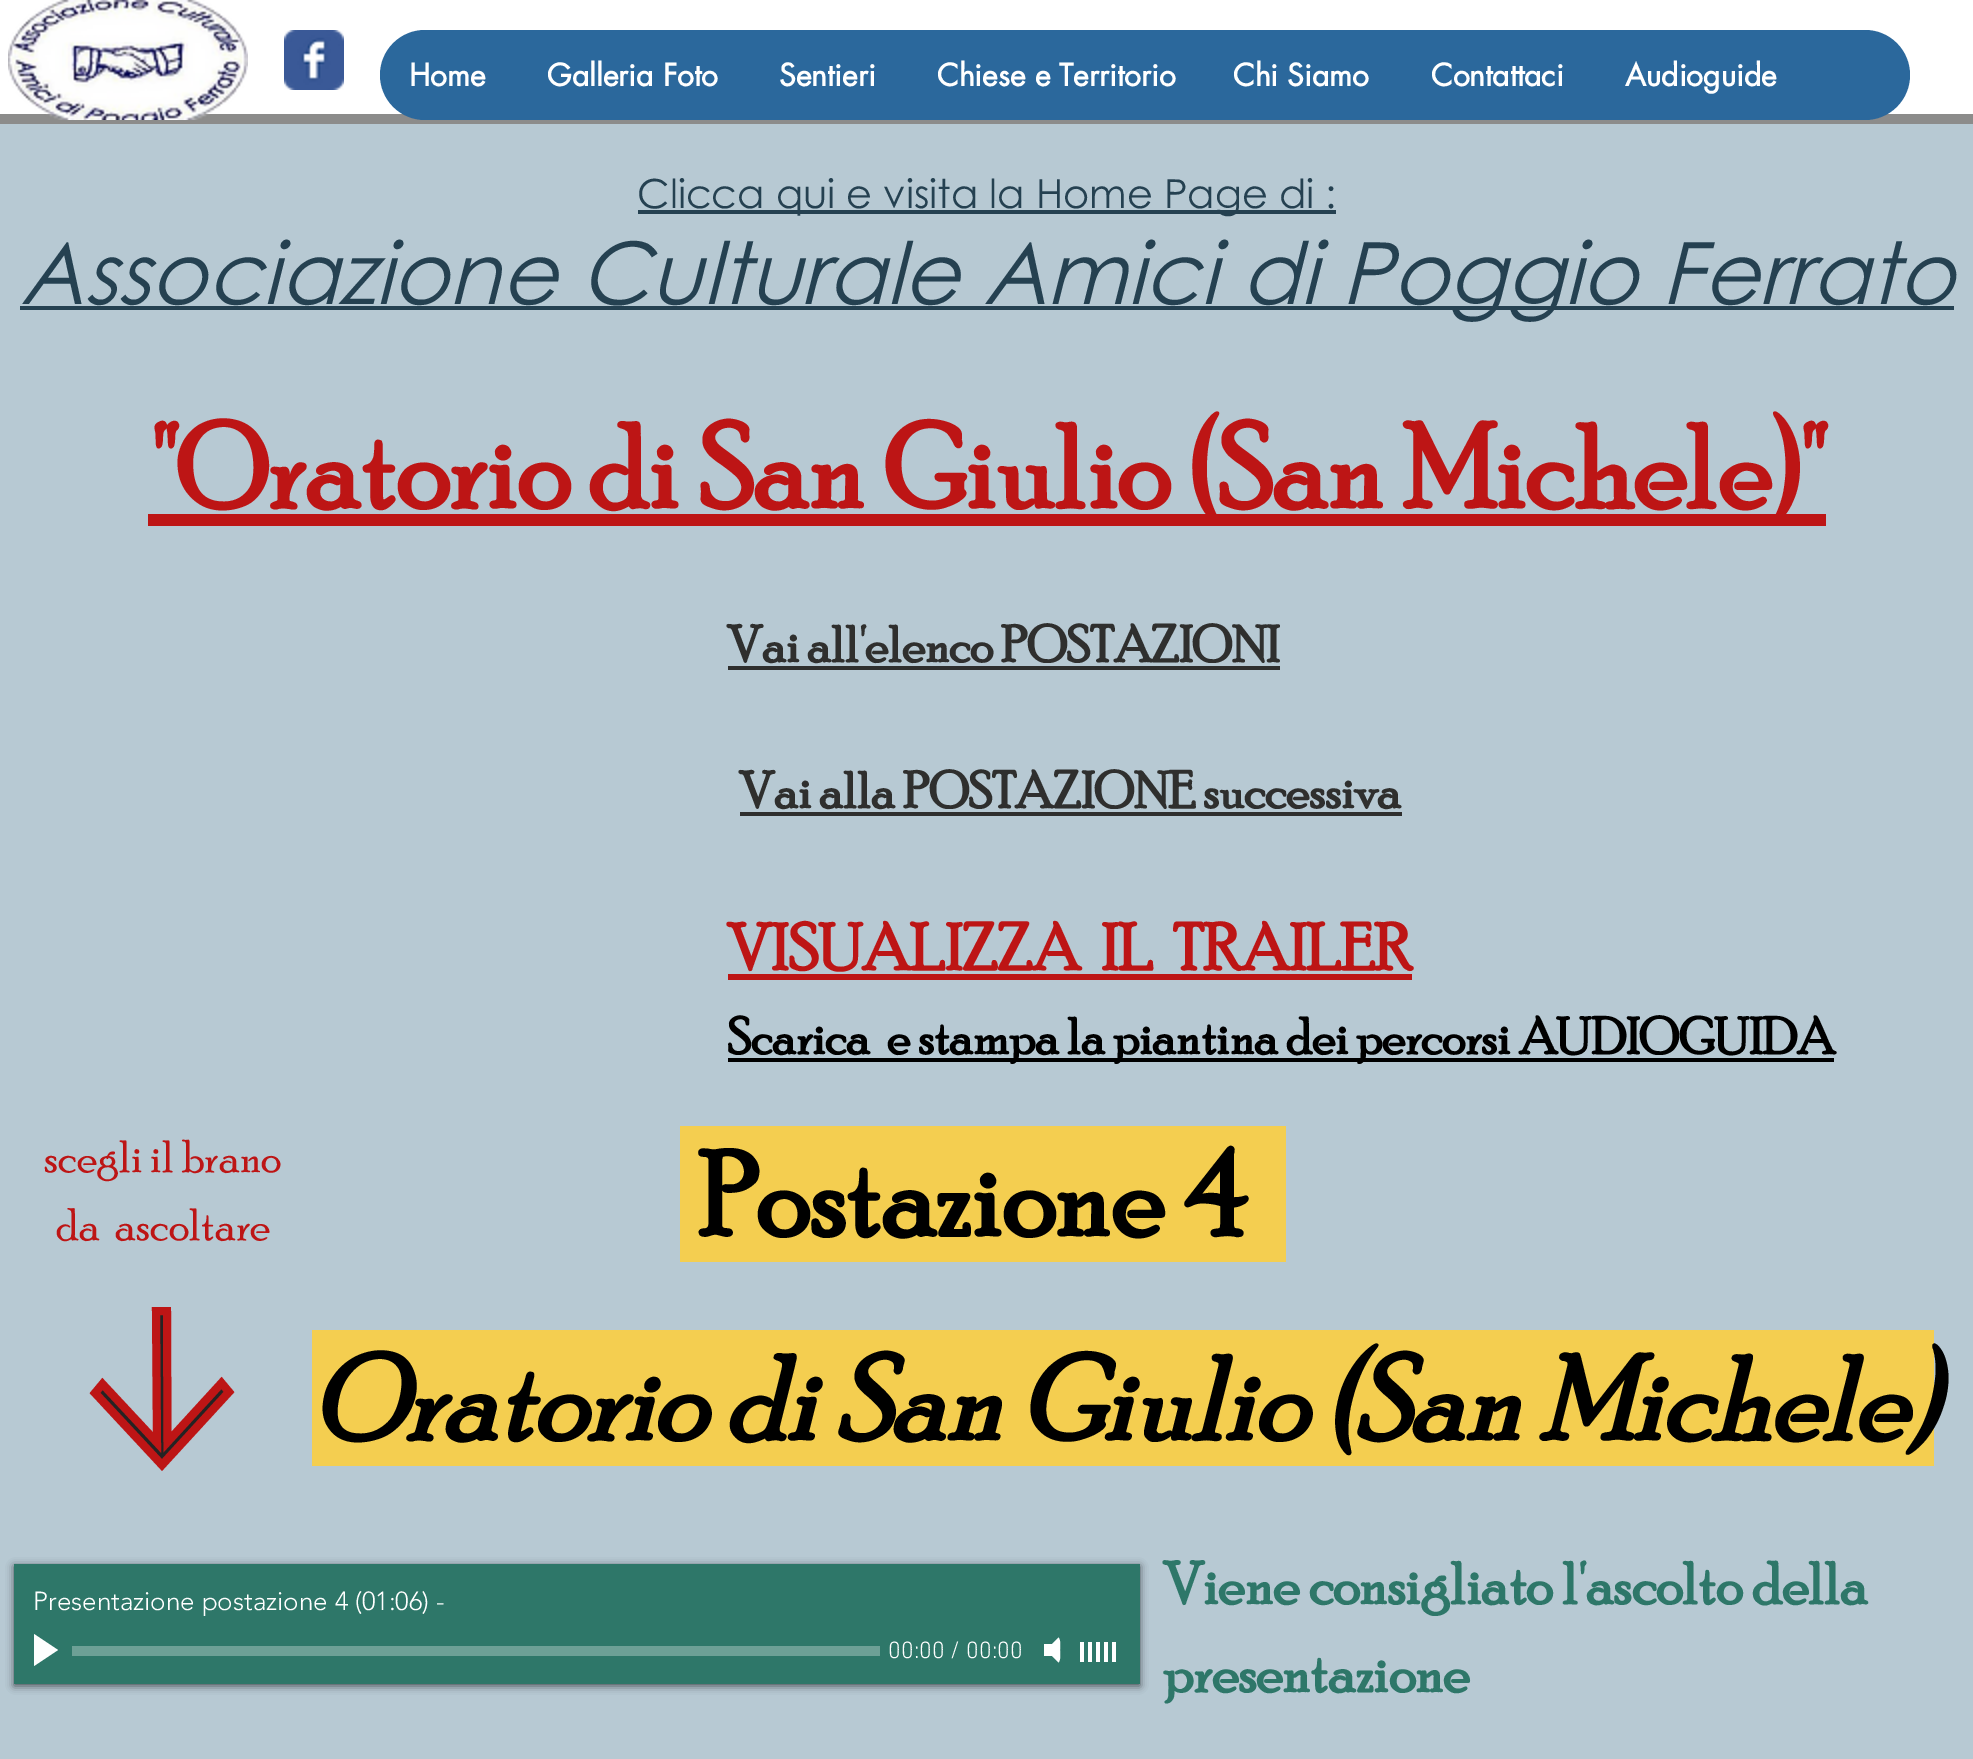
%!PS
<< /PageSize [1973 1759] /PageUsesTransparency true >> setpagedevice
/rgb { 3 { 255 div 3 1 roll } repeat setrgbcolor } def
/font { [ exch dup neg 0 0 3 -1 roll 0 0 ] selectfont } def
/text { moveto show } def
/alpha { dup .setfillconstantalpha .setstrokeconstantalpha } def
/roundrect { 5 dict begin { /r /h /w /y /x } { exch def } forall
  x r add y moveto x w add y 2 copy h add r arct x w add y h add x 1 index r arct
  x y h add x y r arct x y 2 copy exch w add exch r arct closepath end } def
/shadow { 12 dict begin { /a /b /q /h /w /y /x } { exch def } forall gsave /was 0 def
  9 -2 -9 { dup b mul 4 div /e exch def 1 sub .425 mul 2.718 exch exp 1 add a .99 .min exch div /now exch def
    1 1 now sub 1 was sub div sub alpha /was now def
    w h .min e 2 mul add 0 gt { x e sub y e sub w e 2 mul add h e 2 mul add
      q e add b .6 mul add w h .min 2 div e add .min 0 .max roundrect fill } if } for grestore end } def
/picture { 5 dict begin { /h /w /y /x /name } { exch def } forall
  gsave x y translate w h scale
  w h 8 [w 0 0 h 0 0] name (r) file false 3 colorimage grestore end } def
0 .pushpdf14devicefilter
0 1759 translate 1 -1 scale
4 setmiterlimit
183 201 211 rgb
0 0 1973 1759 rectfill
255 255 255 rgb
0 0 1973 114 rectfill
140 140 139 rgb
0 114 1973 10 rectfill
(img_01.rgb) 8 0 240 120 picture
(img_02.rgb) 284 30 60 60 picture
43 104 156 rgb
380 30 1530 90 45 roundrect fill
37 65 81 rgb
638 210 698 4 rectfill
20 306 1934 4 rectfill
189 21 21 rgb
148 514 1678 12 rectfill
47 47 46 rgb
728 666 552 4 rectfill
740 812 662 4 rectfill
189 21 21 rgb
728 974 684 6 rectfill
0 0 0 rgb
728 1058 1106 4 rectfill
36 35 35 rgb
229 1392 moveto -7 -9 rlineto -54 59 rlineto -1 -131 rlineto -11 0 rlineto 1 132 rlineto -55 -59 rlineto -7 9 rlineto 67 72 rlineto closepath fill
189 21 21 rgb
8 setlinewidth
229 1392 moveto -7.5 -9 rlineto -54 59 rlineto -0.5 -131 rlineto -11 0 rlineto 1 131.5 rlineto -54.5 -58.5 rlineto -7.5 9 rlineto 67 72 rlineto closepath stroke
244 206 80 rgb
680 1126 606 136 rectfill
312 1330 1622 136 rectfill
0 0 0 rgb
14 1566 1126 120 0 4 0.6 shadow
46 119 105 rgb
14 1564 1126 120 rectfill
253 254 254 rgb
34 1666 moveto 0 -32 rlineto 24 16 rlineto closepath fill
109 160 150 rgb
72 1646 808 10 rectfill
255 255 255 rgb
1046 1650 moveto 12.5 12.5 rlineto 2.5 -3 1.5 -9 1.5 -12.5 rcurveto 0 -3.5 1 -9.5 -1.5 -12.5 rcurveto closepath fill
1044 1644 8 12 rectfill
1080 1642 4 20 rectfill
1088 1642 4 20 rectfill
1096 1642 4 20 rectfill
1104 1642 4 20 rectfill
1112 1642 4 20 rectfill
/futura-Bold 30 font
(Home) 409 86 text
(Galleria Foto) 547 86 text
(Sentieri) 779 86 text
(Chiese e Territorio) 937 86 text
(Chi Siamo) 1233 86 text
(Contattaci) 1431 86 text
(Audioguide) 1625 86 text
/CenturyGothic-Regular 40 font
37 65 81 rgb
(Clicca qui e visita la Home Page di :) 637 208 text
/CenturyGothic-Italic 86 font
(Associazione Culturale Amici di Poggio Ferrato) 20 304 text
/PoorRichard-Bold 120 font
189 21 21 rgb
("Oratorio di San Giulio \(San Michele\)") 149 508 text
/PoorRichard-Bold 52 font
47 47 46 rgb
(Vai all'elenco POSTAZIONI) 727 662 text
(Vai alla POSTAZIONE successiva) 739 808 text
/PoorRichard-Bold 66 font
189 21 21 rgb
(VISUALIZZA  IL  TRAILER) 727 970 text
/PoorRichard-Bold 52 font
0 0 0 rgb
(Scarica  e stampa la piantina dei percorsi AUDIOGUIDA) 727 1054 text
/PoorRichard-Regular 46 font
189 21 21 rgb
(scegli il brano) 44 1172 text
(da  ascoltare) 56 1240 text
/PoorRichard-Bold 120 font
0 0 0 rgb
(Postazione 4) 698 1236 text
/PoorRichard-BoldItalic 120 font
(Oratorio di San Giulio \(San Michele\)) 312 1440 text
/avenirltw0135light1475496-Light 26 font
255 255 255 rgb
(Presentazione postazione 4 \(01:06\) -) 33 1610 text
/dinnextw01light-Light 24 font
(00:00 / 00:00) 888 1658 text
/PoorRichard-Bold 60 font
46 119 105 rgb
(Viene consigliato l'ascolto della) 1163 1604 text
(presentazione) 1163 1692 text
.poppdf14devicefilter showpage
